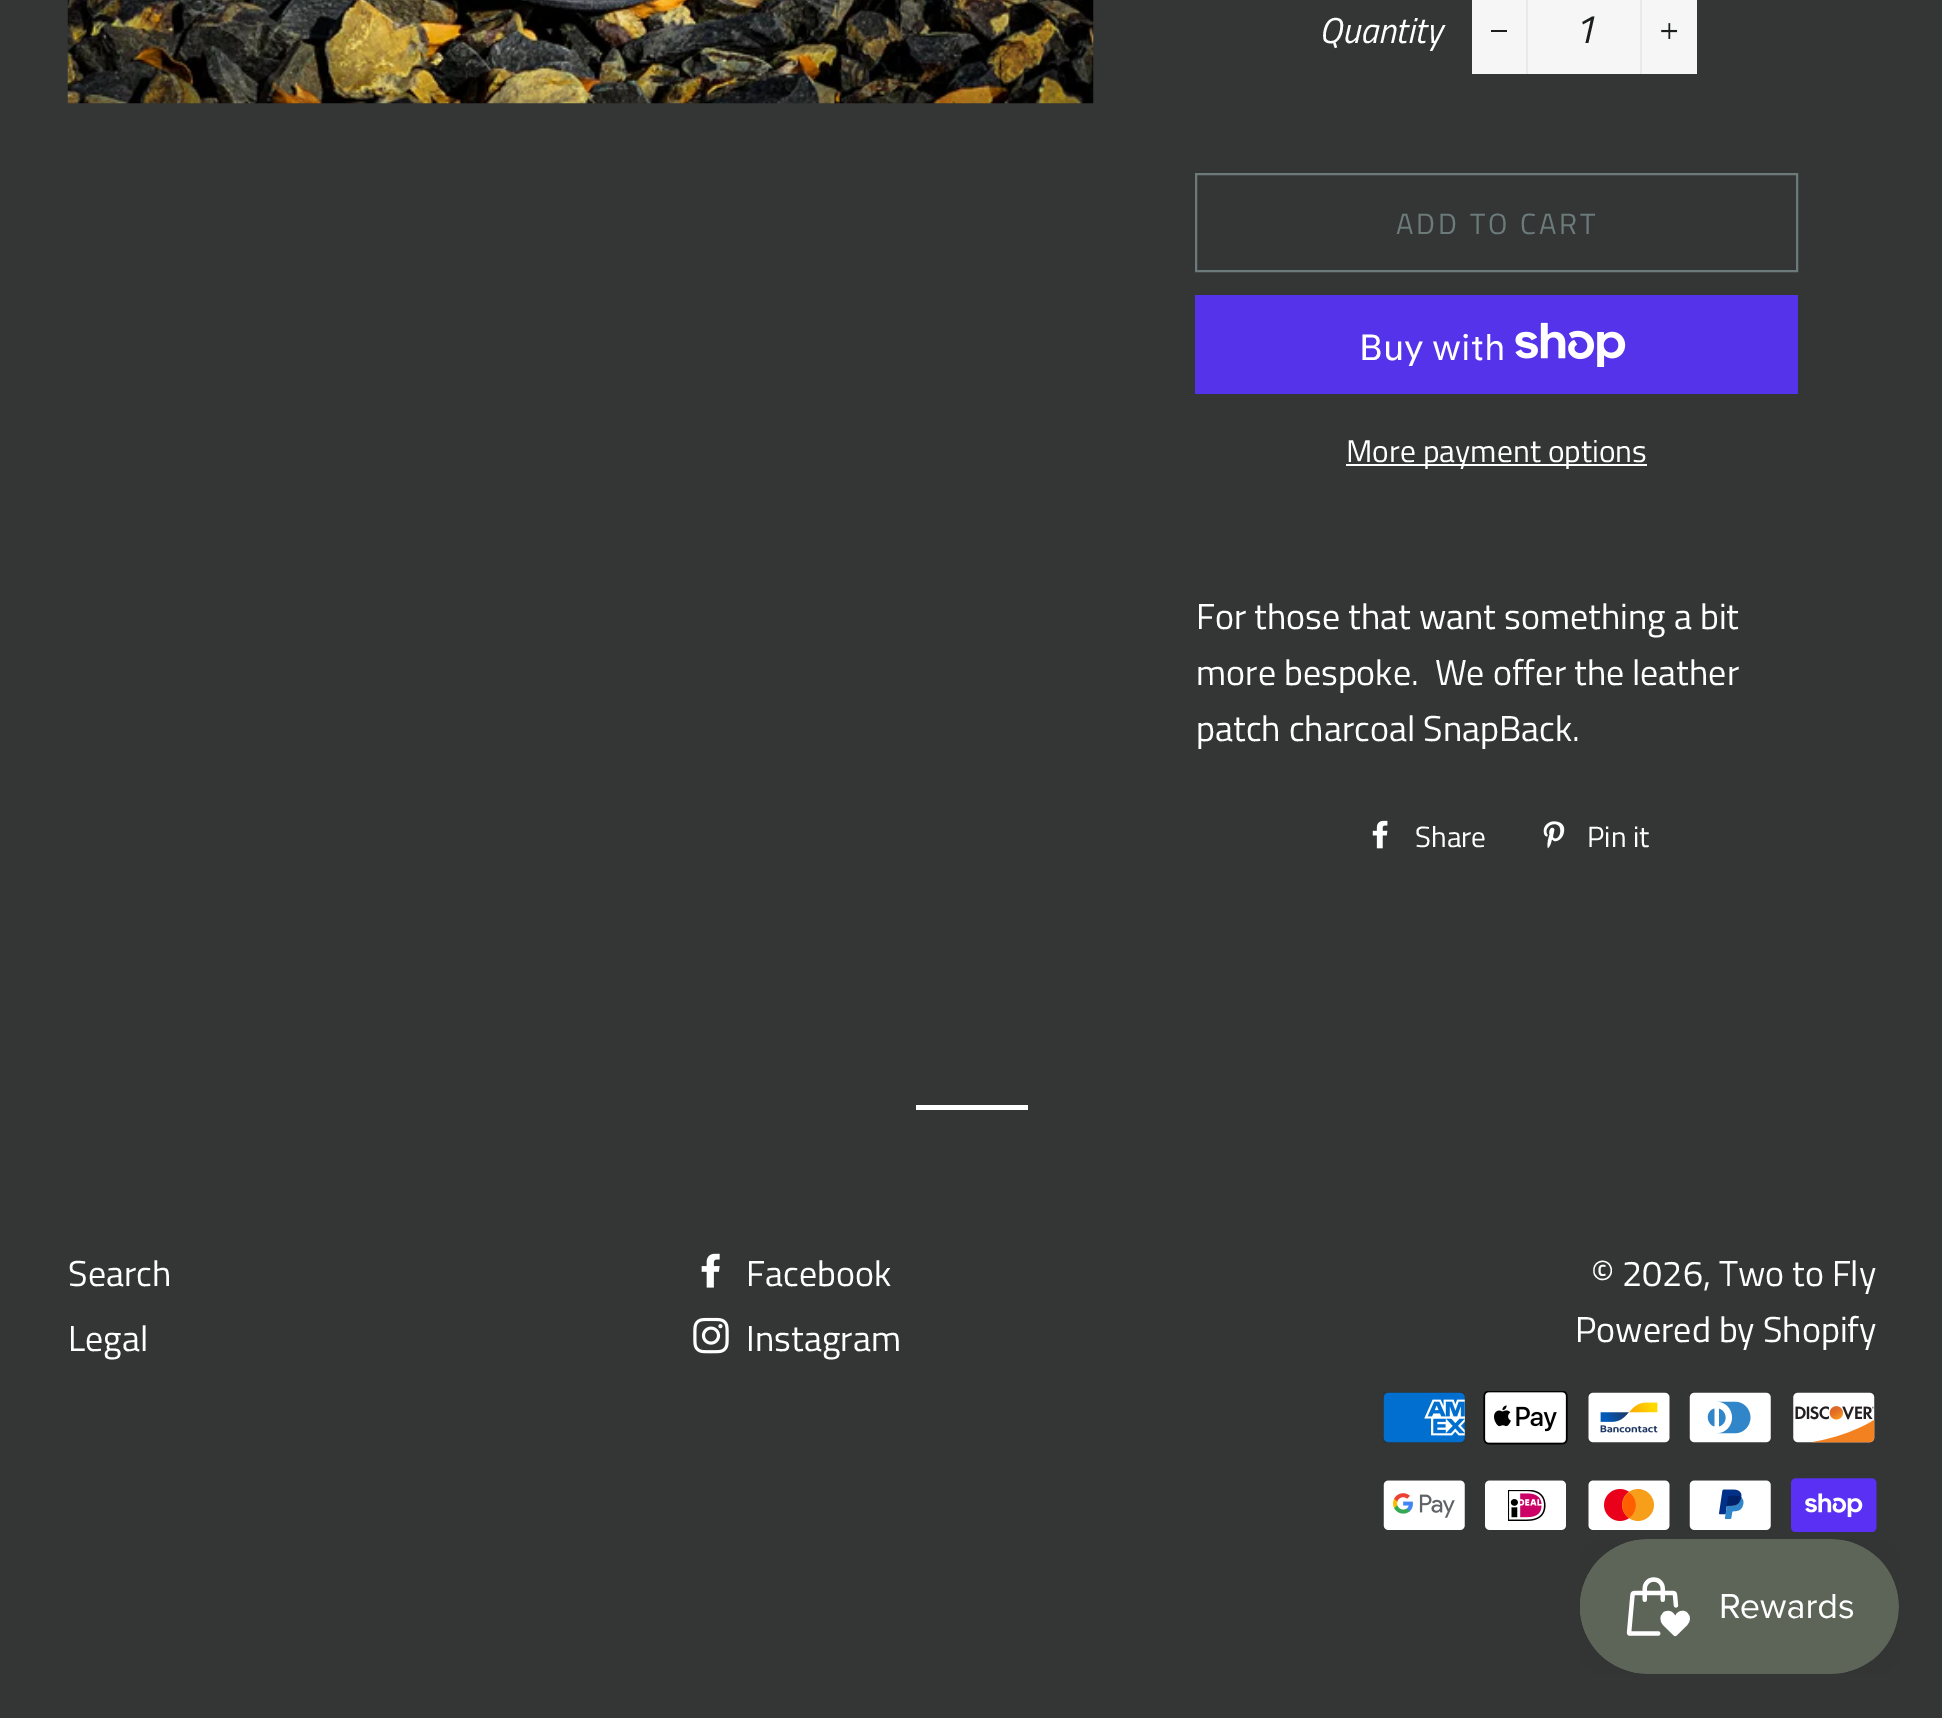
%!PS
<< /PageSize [1942 1718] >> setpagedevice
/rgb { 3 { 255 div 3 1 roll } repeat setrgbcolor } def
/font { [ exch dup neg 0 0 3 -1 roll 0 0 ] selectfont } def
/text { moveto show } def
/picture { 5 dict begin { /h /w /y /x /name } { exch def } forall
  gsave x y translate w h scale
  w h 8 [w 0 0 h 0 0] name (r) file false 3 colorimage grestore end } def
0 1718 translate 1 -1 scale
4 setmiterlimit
52 53 53 rgb
0 0 1942 1718 rectfill
(img_01.rgb) 67 0 1027 104 picture
246 246 246 rgb
1472 0 225 74 rectfill
233 233 233 rgb
1526 0 2 74 rectfill
28 29 29 rgb
1491 30 16 2 rectfill
233 233 233 rgb
1640 0 2 74 rectfill
(img_02.rgb) 1661 23 17 16 picture
108 122 122 rgb
2 setlinewidth
1196 174 601 97 rectstroke
84 51 235 rgb
1195 295 603 99 rectfill
(img_03.rgb) 1515 322 111 45 picture
255 255 255 rgb
1346 464 301 2 rectfill
(img_04.rgb) 1372 820 16 29 picture
(img_05.rgb) 1543 821 22 28 picture
916 1105 112 5 rectfill
(img_06.rgb) 701 1253 19 35 picture
(img_07.rgb) 693 1317 36 37 picture
(img_08.rgb) 1383 1392 82 51 picture
(img_09.rgb) 1483 1391 85 54 picture
(img_10.rgb) 1588 1392 82 51 picture
(img_11.rgb) 1689 1392 82 51 picture
(img_12.rgb) 1793 1392 82 51 picture
(img_13.rgb) 1383 1480 82 50 picture
(img_14.rgb) 1485 1480 81 50 picture
(img_15.rgb) 1588 1480 82 50 picture
(img_16.rgb) 1689 1480 82 50 picture
(img_17.rgb) 1791 1478 86 54 picture
(img_18.rgb) 1580 1539 319 135 picture
/TitilliumWeb-Italic 36 font
(Quantity) 1319 43 text
/TitilliumWeb-Italic 40 font
28 29 29 rgb
(1) 1573 43 text
/TitilliumWeb-Regular 29.25 font
108 122 122 rgb
1396 234 moveto 3 0 (ADD TO CART) ashow
/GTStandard-Regular 36 font
255 255 255 rgb
(Buy with) 1359 360 text
/TitilliumWeb-Regular 31.5 font
(More payment options) 1346 462 text
/TitilliumWeb-Regular 36 font
(For those that want something a bit) 1196 629 text
(more bespoke.  We offer the leather) 1196 685 text
(patch charcoal SnapBack.) 1196 741 text
/TitilliumWeb-Regular 29.25 font
(Share) 1415 847 text
(Pin it) 1587 847 text
/TitilliumWeb-Regular 36 font
(Search) 68 1286 text
(Legal) 68 1351 text
(Facebook) 746 1286 text
(Instagram) 746 1351 text
(© 2026, Two to Fly) 1591 1286 text
(Powered by Shopify) 1575 1342 text
showpage
